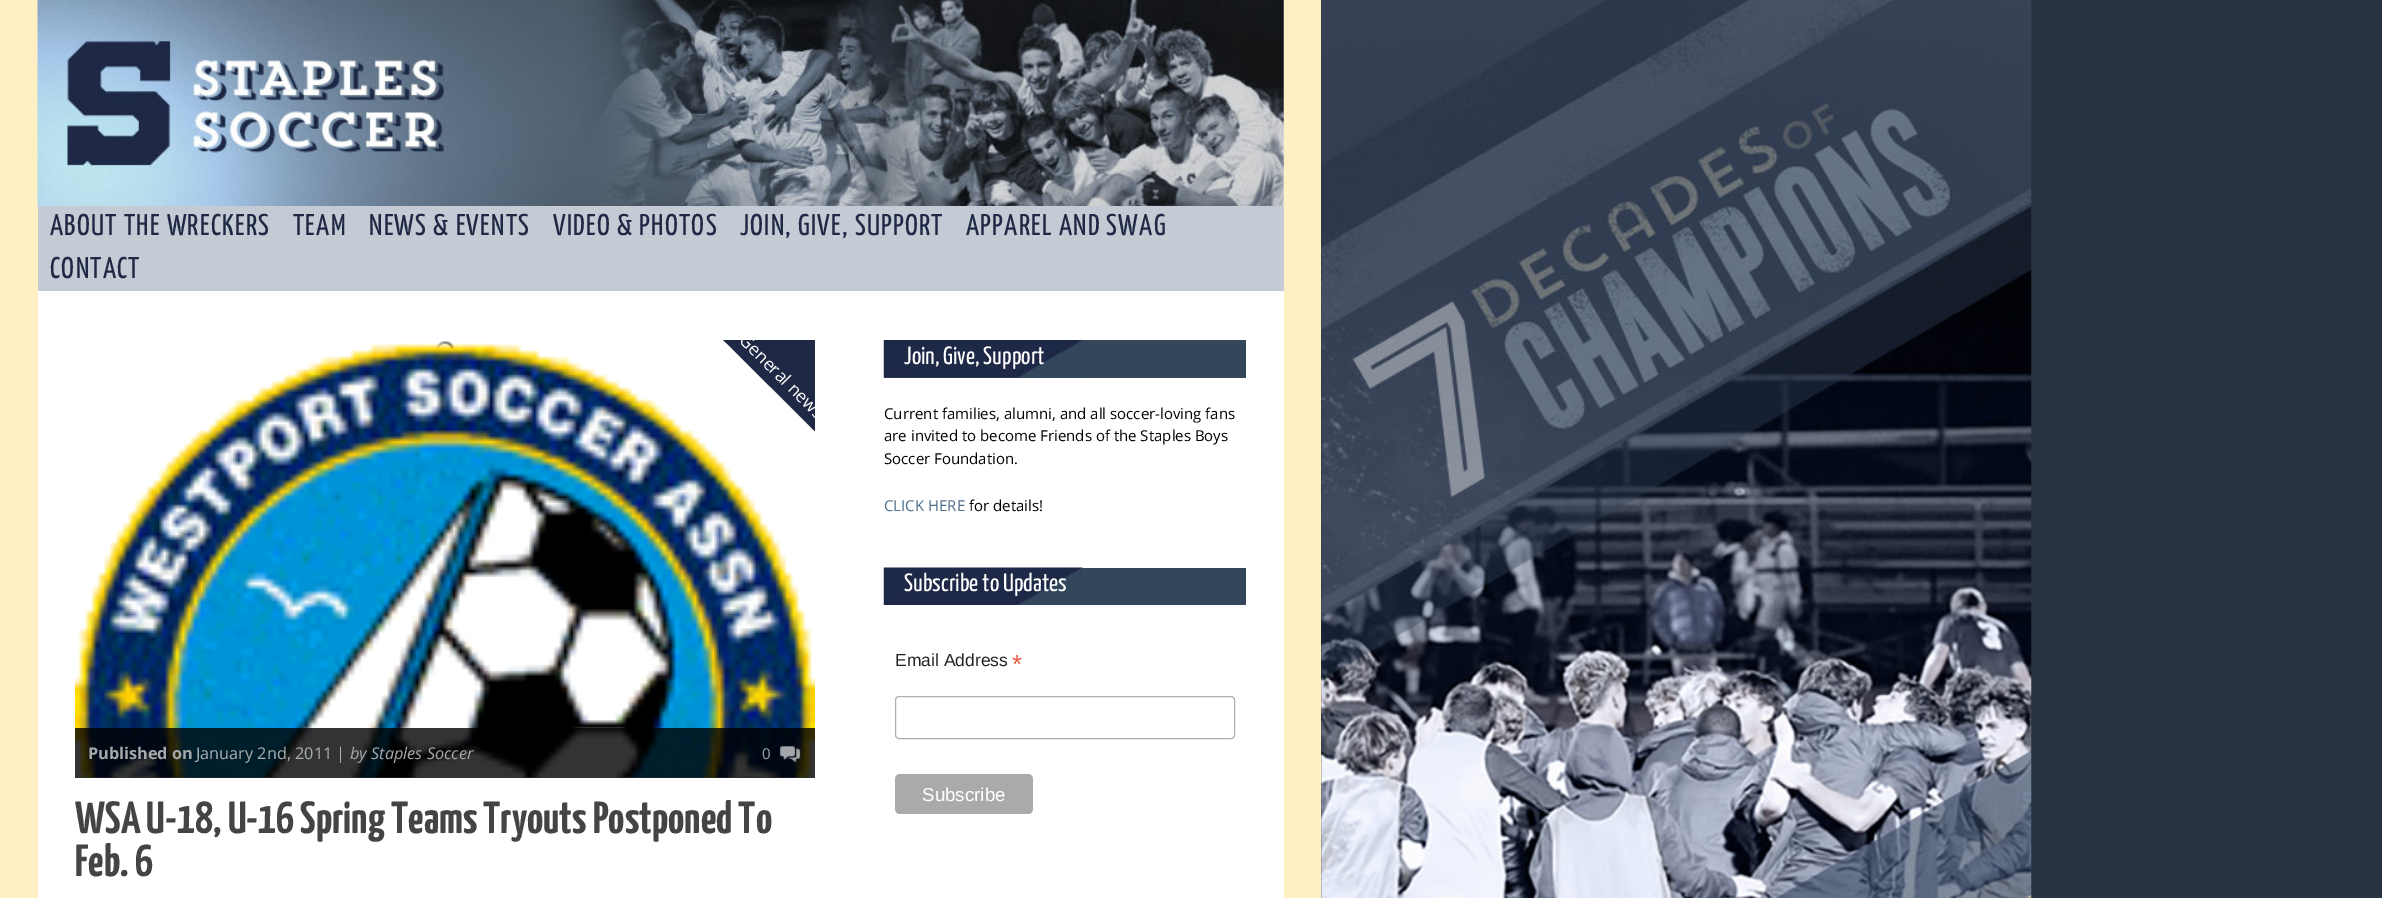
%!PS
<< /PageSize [2382 898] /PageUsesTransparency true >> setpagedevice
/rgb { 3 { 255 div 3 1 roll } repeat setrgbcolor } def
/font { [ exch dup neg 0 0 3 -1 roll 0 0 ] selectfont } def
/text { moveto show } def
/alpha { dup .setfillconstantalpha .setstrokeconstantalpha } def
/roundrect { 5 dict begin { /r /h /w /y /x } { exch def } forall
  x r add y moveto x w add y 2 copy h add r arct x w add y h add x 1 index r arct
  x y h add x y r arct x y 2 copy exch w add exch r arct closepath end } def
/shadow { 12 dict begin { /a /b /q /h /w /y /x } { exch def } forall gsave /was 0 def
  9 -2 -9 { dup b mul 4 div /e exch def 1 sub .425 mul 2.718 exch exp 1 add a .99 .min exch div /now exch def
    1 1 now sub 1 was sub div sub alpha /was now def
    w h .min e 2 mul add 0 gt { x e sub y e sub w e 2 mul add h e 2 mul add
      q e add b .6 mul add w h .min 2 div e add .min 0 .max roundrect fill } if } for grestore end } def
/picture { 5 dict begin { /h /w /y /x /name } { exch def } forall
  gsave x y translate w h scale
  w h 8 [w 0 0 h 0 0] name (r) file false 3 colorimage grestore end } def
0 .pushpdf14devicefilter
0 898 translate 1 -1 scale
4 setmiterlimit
40 51 65 rgb
0 0 2382 898 rectfill
0 0 0 rgb
0 0 1321 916 0 6 0.3 shadow
255 255 255 rgb
38 0 1246 898 rectfill
254 240 194 rgb
1284 0 37 898 rectfill
0 0 38 898 rectfill
(img_01.rgb) 37 0 1247 208 picture
196 203 212 rgb
38 206 1246 85 rectfill
(img_02.rgb) 436 341 18 8 picture
(img_03.rgb) 75 343 740 435 picture
gsave
75 340 740 438 rectclip
31 41 69 rgb
764 217 moveto 177 177 rlineto -82 81 rlineto -177 -176 rlineto closepath fill
grestore
0.8 alpha
0 0 0 rgb
75 728 740 50 rectfill
1 alpha
(img_04.rgb) 779 746 22 17 picture
52 71 90 rgb
884 340 362 38 rectfill
(img_05.rgb) 883 340 200 38 picture
1082 568 164 37 rectfill
(img_06.rgb) 883 567 200 38 picture
171 176 178 rgb
895.5 696.5 339 42 3.5 roundrect stroke
170 170 170 rgb
895 774 138 40 5 roundrect fill
(img_07.rgb) 1321 0 711 898 picture
/YanoneKaffeesatz-Regular 30 font
31 41 69 rgb
50 235 moveto 1.25 0 (ABOUT THE WRECKERS) ashow
293 235 moveto 1.25 0 (TEAM) ashow
369 235 moveto 1.25 0 (NEWS & EVENTS) ashow
553 235 moveto 1.25 0 (VIDEO & PHOTOS) ashow
740 235 moveto 1.25 0 (JOIN, GIVE, SUPPORT) ashow
966 235 moveto 1.25 0 (APPAREL AND SWAG) ashow
50 278 moveto 1.25 0 (CONTACT) ashow
gsave
75 340 740 438 rectclip
/OpenSans-Regular 17.5 font
255 255 255 rgb
gsave 738 341 translate 45 rotate 0 0 moveto (General news) show grestore
grestore
/OpenSans-Bold 16.25 font
166 169 171 rgb
(Published on) 88 759 text
/OpenSans-Regular 16.25 font
169 176 179 rgb
(January 2nd, 2011 |) 196 759 text
/OpenSans-Italic 16.25 font
166 169 171 rgb
(by Staples Soccer) 350 759 text
/OpenSans-Regular 15 font
(0) 762 759 text
/YanoneKaffeesatz-Bold 45 font
68 68 68 rgb
(WSA U-18, U-16 Spring Teams Tryouts Postponed To) 75 833 text
(Feb. 6) 75 876 text
/YanoneKaffeesatz-Regular 25 font
255 255 255 rgb
(Join, Give, Support) 904 364 text
/OpenSans-Regular 15 font
0 0 0 rgb
(Current families, alumni, and all soccer-loving fans) 884 419 text
(are invited to become Friends of the Staples Boys) 884 441 text
(Soccer Foundation.) 884 464 text
78 109 140 rgb
(CLICK HERE) 884 511 text
0 0 0 rgb
(for details!) 969 511 text
/YanoneKaffeesatz-Regular 25 font
255 255 255 rgb
(Subscribe to Updates) 904 591 text
/LiberationSans-Regular 17.5 font
34 34 34 rgb
(Email Address) 895 666 text
/LiberationSans-Regular 26 font
232 92 65 rgb
(*) 1012 673 text
/LiberationSans-Regular 18.75 font
255 255 255 rgb
(Subscribe) 922 801 text
.poppdf14devicefilter showpage
